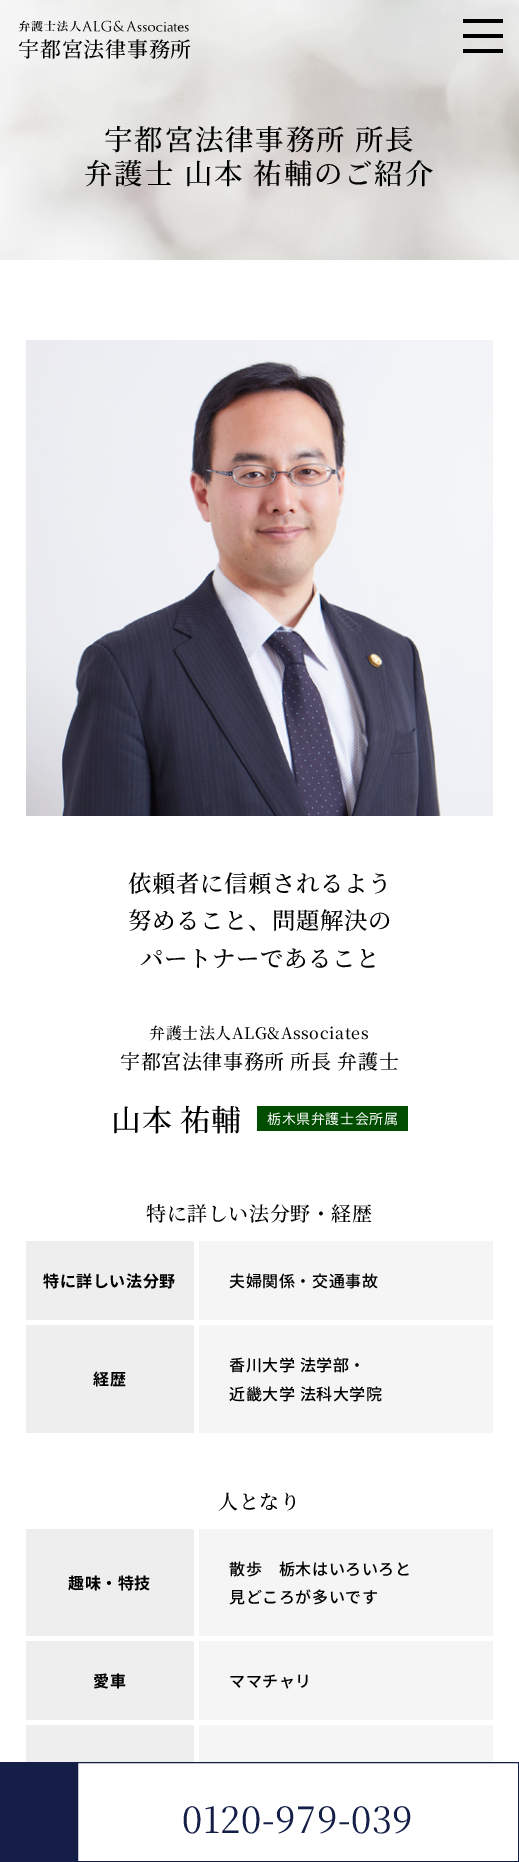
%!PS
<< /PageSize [519 1862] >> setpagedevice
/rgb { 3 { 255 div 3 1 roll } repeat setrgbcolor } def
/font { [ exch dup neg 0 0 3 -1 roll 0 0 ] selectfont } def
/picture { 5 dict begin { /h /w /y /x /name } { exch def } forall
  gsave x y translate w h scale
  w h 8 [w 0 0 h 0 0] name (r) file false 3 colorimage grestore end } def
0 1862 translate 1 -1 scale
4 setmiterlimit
255 255 255 rgb
0 0 519 1862 rectfill
(img_02.rgb) 0 0 519 260 picture
(img_01.rgb) 18 20 171 12 picture
0 0 0 rgb
463 34 40 4 rectfill
463 19 40 4 rectfill
463 49 40 4 rectfill
(img_03.rgb) 26 340 467 476 picture
0 77 0 rgb
257 1106 151 25 rectfill
238 238 238 rgb
26 1241 168 79 rectfill
245 245 245 rgb
199 1241 294 79 rectfill
238 238 238 rgb
26 1325 168 108 rectfill
245 245 245 rgb
199 1325 294 108 rectfill
238 238 238 rgb
26 1529 168 107 rectfill
245 245 245 rgb
199 1529 294 107 rectfill
238 238 238 rgb
26 1641 168 79 rectfill
245 245 245 rgb
199 1641 294 79 rectfill
238 238 238 rgb
26 1725 168 37 rectfill
245 245 245 rgb
199 1725 294 37 rectfill
20 30 70 rgb
0 1762 77 100 rectfill
77.5 1762.5 441 99 rectstroke
/NotoSerifJP-Medium 21 font
0 0 0 rgb
18 57 moveto 0.75 0 (宇都宮法律事務所) ashow
/NotoSerifJP-Medium 28.5 font
104 150 moveto 1.75 0 (宇都宮法律事務所 所長) ashow
84 184 moveto 1.75 0 (弁護士 山本 祐輔のご紹介) ashow
/NotoSerifJP-Medium 23.4 font
128 892 moveto 0.6 0 (依頼者に信頼されるよう) ashow
128 929 moveto 0.6 0 (努めること、問題解決の) ashow
140 967 moveto 0.6 0 (パートナーであること) ashow
/NotoSerifJP-Medium 16 font
149 1039 moveto 0.6 0 (弁護士法人ALG&Associates) ashow
/NotoSerifJP-Medium 20 font
120 1069 moveto 0.6 0 (宇都宮法律事務所 所長 弁護士) ashow
/NotoSerifJP-Medium 30 font
111 1131 moveto 0.6 0 (山本 祐輔) ashow
/NotoSansJP-Regular 14 font
255 255 255 rgb
267 1124 moveto 0.6 0 (栃木県弁護士会所属) ashow
/NotoSerifJP-Medium 20 font
0 0 0 rgb
146 1221 moveto 0.6 0 (特に詳しい法分野・経歴) ashow
/NotoSansJP-Bold 16 font
43 1287 moveto 0.6 0 (特に詳しい法分野) ashow
/NotoSansJP-Medium 16 font
229 1287 moveto 0.6 0 (夫婦関係・交通事故) ashow
/NotoSansJP-Bold 16 font
93 1385 moveto 0.6 0 (経歴) ashow
/NotoSansJP-Medium 16 font
229 1371 moveto 0.6 0 (香川大学 法学部・) ashow
229 1400 moveto 0.6 0 (近畿大学 法科大学院) ashow
/NotoSerifJP-Medium 20 font
218 1509 moveto 0.6 0 (人となり) ashow
/NotoSansJP-Bold 16 font
68 1589 moveto 0.6 0 (趣味・特技) ashow
/NotoSansJP-Medium 16 font
229 1575 moveto 0.6 0 (散歩　栃木はいろいろと) ashow
229 1603 moveto 0.6 0 (見どころが多いです) ashow
/NotoSansJP-Bold 16 font
93 1687 moveto 0.6 0 (愛車) ashow
/NotoSansJP-Medium 16 font
229 1687 moveto 0.6 0 (ママチャリ) ashow
/NotoSerifJP-Regular 36.25 font
20 30 70 rgb
182 1833 moveto 0.6 0 (0120-979-039) ashow
showpage
